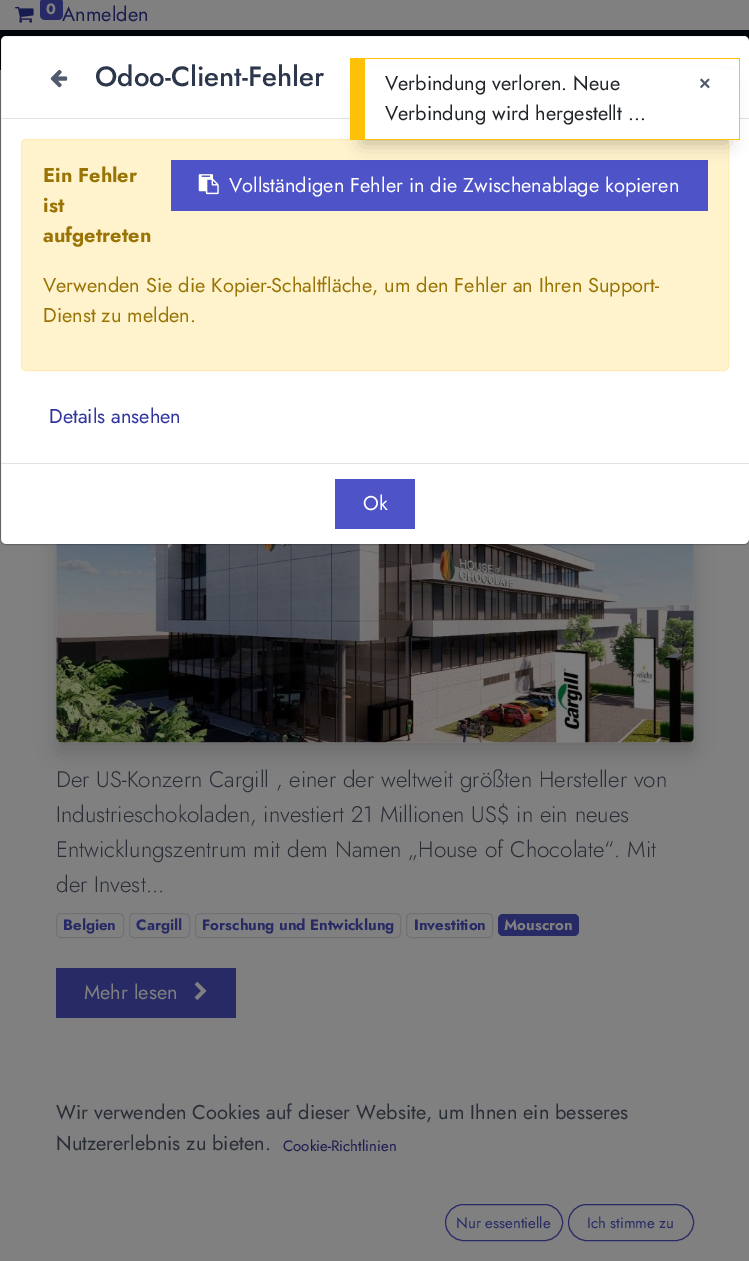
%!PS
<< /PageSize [749 1261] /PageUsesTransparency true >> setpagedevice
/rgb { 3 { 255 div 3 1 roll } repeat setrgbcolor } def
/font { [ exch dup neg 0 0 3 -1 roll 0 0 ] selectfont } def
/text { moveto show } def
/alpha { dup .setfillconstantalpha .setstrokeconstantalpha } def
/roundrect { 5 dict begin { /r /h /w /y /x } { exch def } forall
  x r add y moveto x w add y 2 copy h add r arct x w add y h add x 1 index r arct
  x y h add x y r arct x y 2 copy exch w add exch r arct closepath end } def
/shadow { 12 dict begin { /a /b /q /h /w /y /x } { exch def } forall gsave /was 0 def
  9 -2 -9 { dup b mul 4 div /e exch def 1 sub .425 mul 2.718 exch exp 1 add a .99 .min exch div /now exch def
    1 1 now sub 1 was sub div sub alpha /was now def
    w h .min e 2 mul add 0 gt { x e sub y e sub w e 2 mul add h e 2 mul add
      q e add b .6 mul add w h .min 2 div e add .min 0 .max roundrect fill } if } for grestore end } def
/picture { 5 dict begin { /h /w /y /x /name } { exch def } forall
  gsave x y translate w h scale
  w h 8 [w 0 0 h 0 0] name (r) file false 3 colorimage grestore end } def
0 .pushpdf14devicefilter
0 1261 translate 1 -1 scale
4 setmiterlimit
128 128 128 rgb
0 0 749 1261 rectfill
(img_01.rgb) 15 6 19 17 picture
0 4 10 rgb
0 30 749 40 rectfill
0 0 0 rgb
56 543 638 210 5 10 0.15 shadow
(img_02.rgb) 56 544 638 199 picture
111 113 115 rgb
56.5 913.5 67 24 4.5 roundrect stroke
129.5 913.5 60 24 4.5 roundrect stroke
195.5 913.5 205 24 4.5 roundrect stroke
406.5 913.5 86 24 4.5 roundrect stroke
39 42 100 rgb
498 914 81 22 5 roundrect fill
56 968 180 50 rectfill
(img_03.rgb) 194 981 13 19 picture
445.5 1204.5 117 36 18 roundrect stroke
568.5 1204.5 125 36 18 roundrect stroke
255 255 255 rgb
1 36 748 508 5 roundrect fill
0.2 alpha
0 0 0 rgb
0.5 35.5 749 509 5.5 roundrect stroke
1 alpha
222 226 230 rgb
1 118 748 1 rectfill
(img_04.rgb) 50 69 18 19 picture
255 243 205 rgb
21.5 139.5 707 231 4.5 roundrect gsave fill grestore
255 236 181 rgb
stroke
78 84 200 rgb
171 160 537 51 rectfill
(img_05.rgb) 198 174 21 21 picture
222 226 230 rgb
1 463 748 1 rectfill
78 84 200 rgb
335 479 80 50 rectfill
0 0 0 rgb
363 85 365 58 0 9 0.25 shadow
255 255 255 rgb
365 69 374 70 rectfill
255 193 7 rgb
365 58 375 1 rectfill
739 58 1 82 rectfill
365 139 375 1 rectfill
350 58 15 82 rectfill
/Jost-Regular 20 font
25 27 79 rgb
(Anmelden) 62 21 text
39 42 100 rgb
40 -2 23 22 5 roundrect fill
/Jost-Bold 15 font
128 128 128 rgb
(0) 46 14 text
/Jost-Light 22.5 font
41 45 54 rgb
(Der US-Konzern Cargill , einer der weltweit größten Hersteller von) 56 787 text
(Industrieschokoladen, investiert 21 Millionen US$ in ein neues) 56 822 text
(Entwicklungszentrum mit dem Namen „House of Chocolate“. Mit) 56 857 text
(der Invest...) 56 892 text
/Jost-Bold 15 font
39 42 100 rgb
(Belgien) 63 930 text
(Cargill) 136 930 text
(Forschung und Entwicklung) 202 930 text
(Investition) 414 930 text
128 128 128 rgb
(Mouscron) 504 930 text
/Jost-Regular 20 font
(Mehr lesen) 84 999 text
41 45 54 rgb
(Wir verwenden Cookies auf dieser Website, um Ihnen ein besseres) 56 1119 text
(Nutzererlebnis zu bieten.) 56 1150 text
/Jost-Regular 15 font
25 27 79 rgb
(Cookie-Richtlinien) 283 1151 text
39 42 100 rgb
(Nur essentielle) 456 1228 text
(Ich stimme zu) 587 1228 text
/Jost-Medium 27.75 font
45 55 75 rgb
(Odoo-Client-Fehler) 95 86 text
/Jost-Bold 20 font
153 116 4 rgb
(Ein Fehler) 43 182 text
(ist) 43 212 text
(aufgetreten) 43 242 text
/Jost-Regular 20 font
255 255 255 rgb
(Vollständigen Fehler in die Zwischenablage kopieren) 229 192 text
153 116 4 rgb
(Verwenden Sie die Kopier-Schaltfläche, um den Fehler an Ihren Support-) 43 292 text
(Dienst zu melden.) 43 322 text
49 54 158 rgb
(Details ansehen) 49 423 text
255 255 255 rgb
(Ok) 363 510 text
33 37 41 rgb
(Verbindung verloren. Neue) 385 90 text
(Verbindung wird hergestellt ...) 385 120 text
/LiberationSans-Bold 20 font
81 89 108 rgb
(×) 699 90 text
.poppdf14devicefilter showpage
